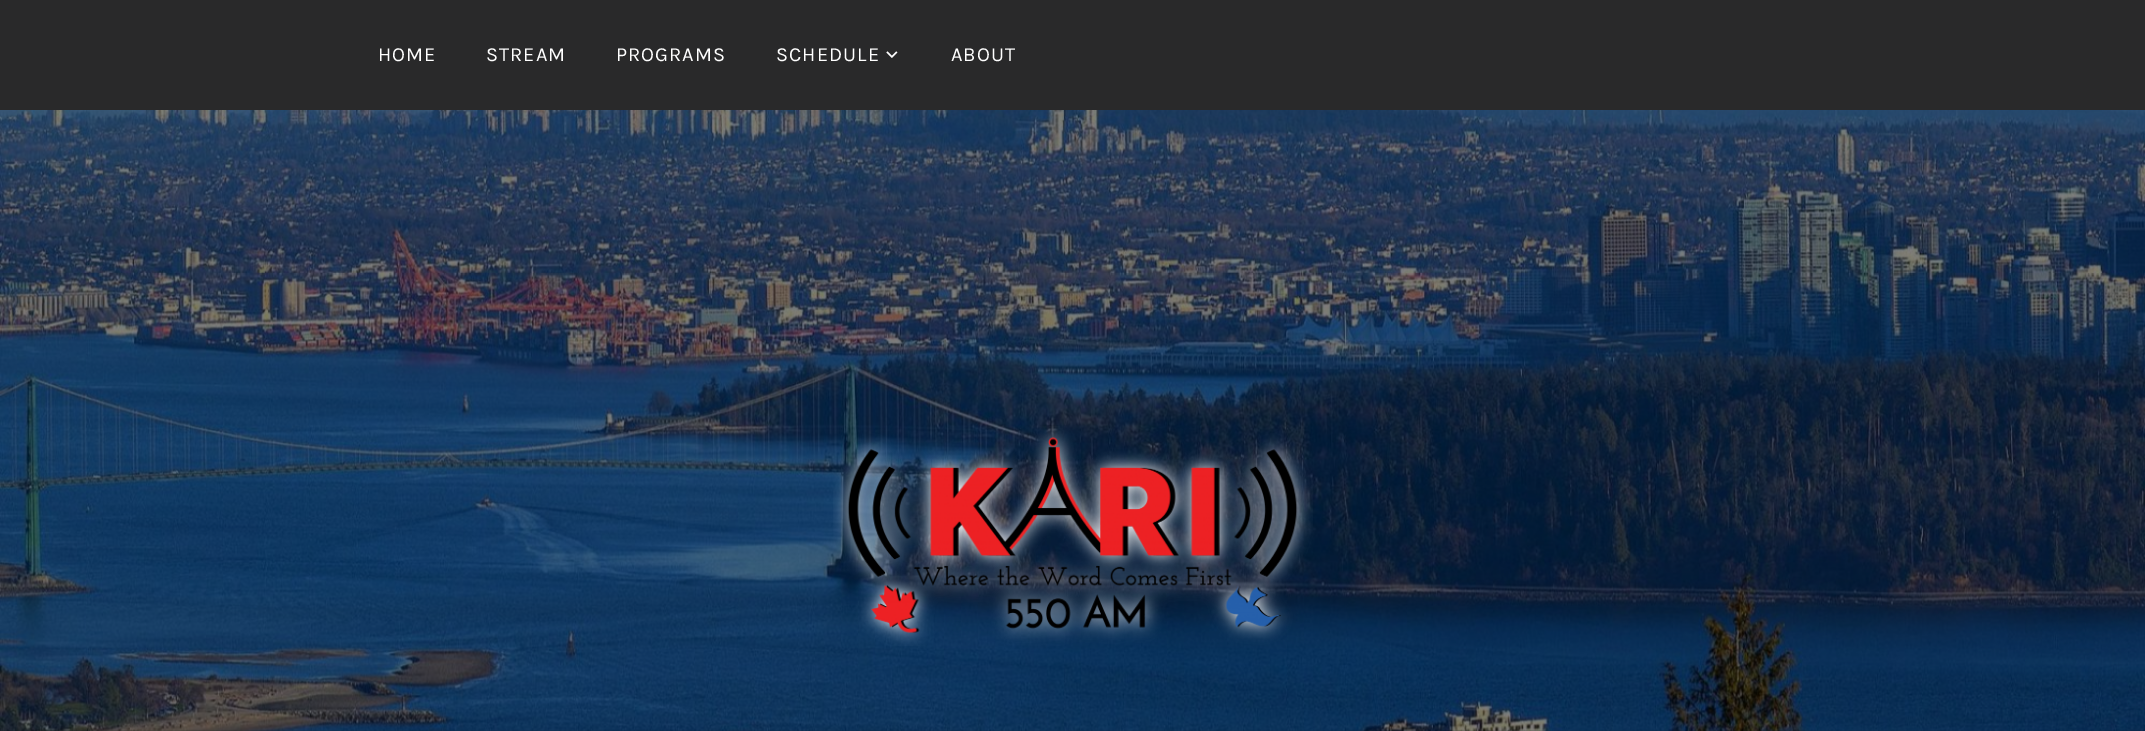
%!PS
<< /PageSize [2145 731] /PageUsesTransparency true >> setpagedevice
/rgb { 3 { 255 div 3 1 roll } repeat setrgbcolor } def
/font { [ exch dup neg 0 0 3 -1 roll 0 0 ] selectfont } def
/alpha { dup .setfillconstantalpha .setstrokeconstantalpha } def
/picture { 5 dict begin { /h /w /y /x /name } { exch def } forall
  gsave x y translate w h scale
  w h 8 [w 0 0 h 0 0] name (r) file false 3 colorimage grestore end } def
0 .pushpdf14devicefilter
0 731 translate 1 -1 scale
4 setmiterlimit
255 255 255 rgb
0 0 2145 731 rectfill
(img_01.rgb) 0 730 2145 1 picture
41 41 42 rgb
0 0 2145 110 rectfill
(img_02.rgb) 886 51 12 7 picture
(img_03.rgb) 0 110 2145 621 picture
0.5 alpha
0 0 0 rgb
0 110 2145 621 rectfill
1 alpha
(img_04.rgb) 833 426 480 220 picture
/Karla-Regular 20 font
255 255 255 rgb
378 61 moveto 1 0 (HOME) ashow
486 61 moveto 1 0 (STREAM) ashow
616 61 moveto 1 0 (PROGRAMS) ashow
776 61 moveto 1 0 (SCHEDULE) ashow
951 61 moveto 1 0 (ABOUT) ashow
.poppdf14devicefilter showpage
